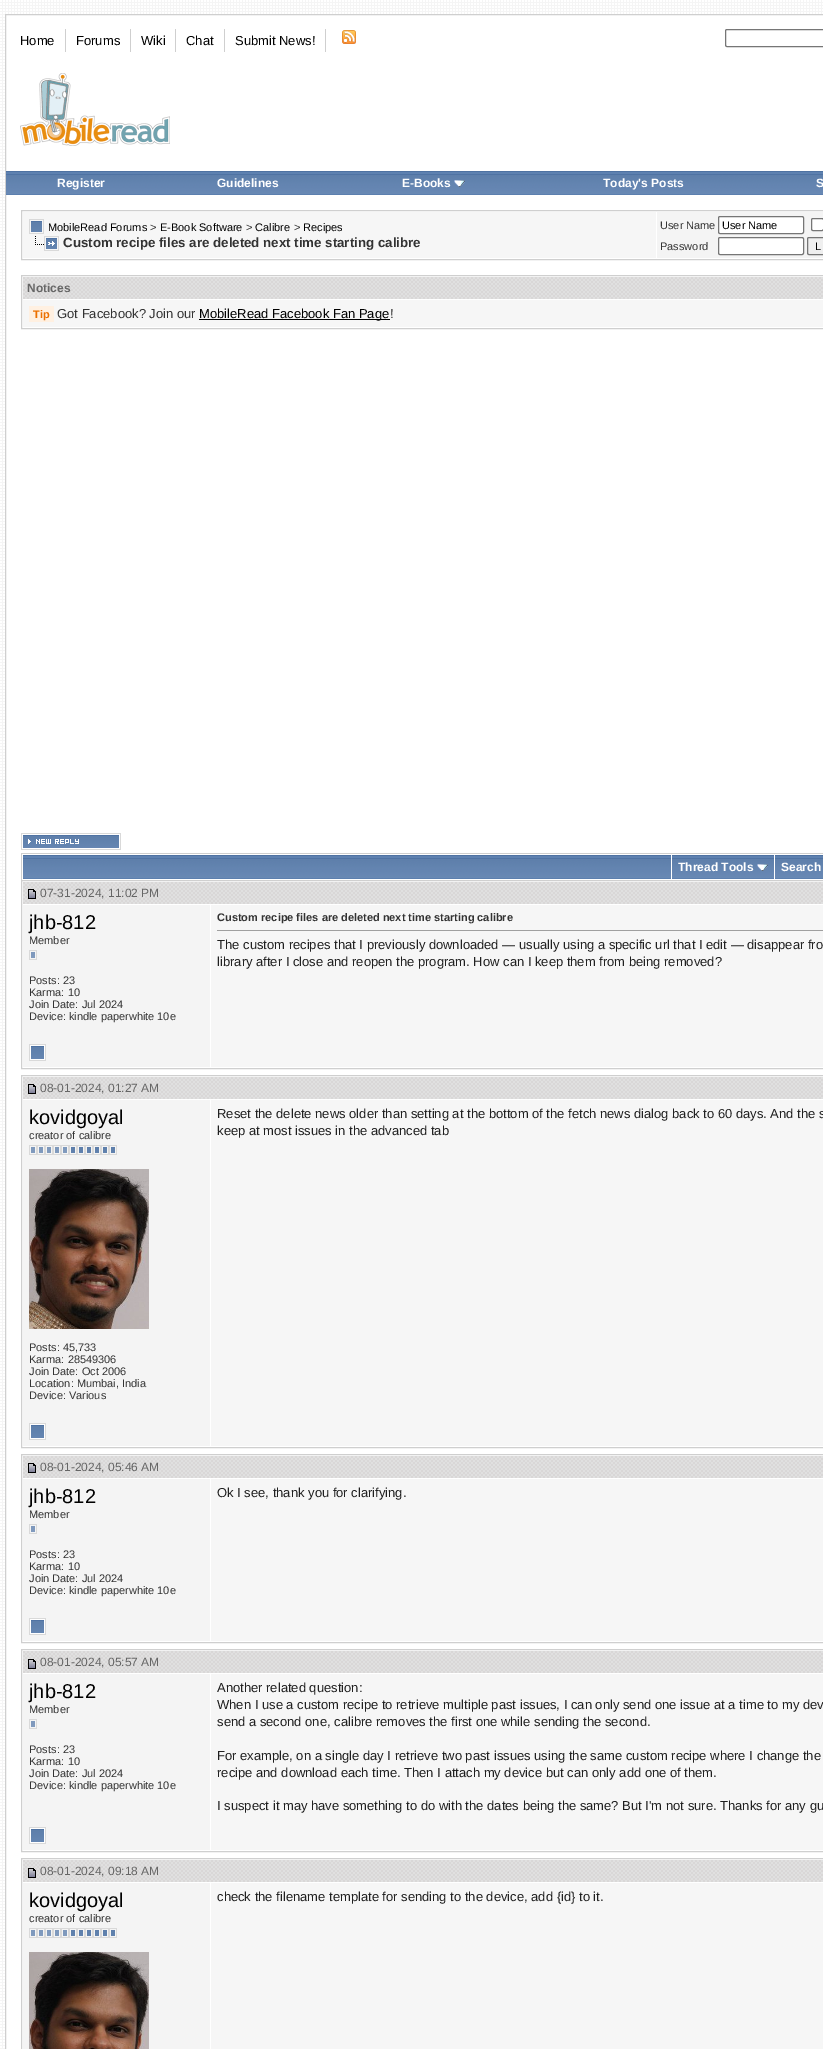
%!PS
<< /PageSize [823 2049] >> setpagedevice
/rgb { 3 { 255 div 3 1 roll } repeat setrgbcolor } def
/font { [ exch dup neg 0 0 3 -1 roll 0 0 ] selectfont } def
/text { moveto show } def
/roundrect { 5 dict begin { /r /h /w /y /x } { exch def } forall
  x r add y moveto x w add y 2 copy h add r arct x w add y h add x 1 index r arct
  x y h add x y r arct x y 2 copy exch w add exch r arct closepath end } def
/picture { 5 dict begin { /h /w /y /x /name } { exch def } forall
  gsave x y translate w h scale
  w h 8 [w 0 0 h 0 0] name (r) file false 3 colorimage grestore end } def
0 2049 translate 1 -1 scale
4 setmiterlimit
255 255 255 rgb
0 0 823 2049 rectfill
(img_01.rgb) 0 0 823 2049 picture
5.5 14.5 moveto 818 0 rlineto 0 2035 rlineto -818 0 rlineto closepath gsave fill grestore
207 207 207 rgb
stroke
65 29 1 23 rectfill
130 29 1 23 rectfill
175 29 1 23 rectfill
224 29 1 23 rectfill
325 29 1 23 rectfill
(img_02.rgb) 342 30 14 14 picture
118 118 118 rgb
725.5 29.5 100 17 1.5 roundrect stroke
(img_03.rgb) 20 73 150 73 picture
78 114 162 rgb
6 171 817 1 rectfill
(img_04.rgb) 6 172 150 23 picture
(img_05.rgb) 156 172 184 23 picture
(img_06.rgb) 340 172 187 23 picture
(img_07.rgb) 454 180 11 7 picture
(img_08.rgb) 527 172 233 23 picture
(img_09.rgb) 760 172 63 23 picture
207 207 207 rgb
21.5 210.5 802 49 rectstroke
246 246 246 rgb
23 212 633 46 rectfill
(img_10.rgb) 29 219 15 15 picture
(img_11.rgb) 35 236 24 15 picture
244 244 244 rgb
657 212 166 46 rectfill
255 255 255 rgb
718.5 216.5 85 17 1.5 roundrect gsave fill grestore
118 118 118 rgb
stroke
255 255 255 rgb
811.5 218.5 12 12 1.5 roundrect gsave fill grestore
118 118 118 rgb
stroke
255 255 255 rgb
718.5 237.5 85 17 1.5 roundrect gsave fill grestore
118 118 118 rgb
stroke
239 239 239 rgb
807.5 237.5 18 17 1.5 roundrect gsave fill grestore
118 118 118 rgb
stroke
207 207 207 rgb
21.5 275.5 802 53 rectstroke
(img_12.rgb) 23 277 800 22 picture
246 246 246 rgb
23 300 800 27 rectfill
255 240 225 rgb
29 306 25 16 rectfill
0 0 0 rgb
199 319 191 1 rectfill
(img_13.rgb) 21 833 100 17 picture
207 207 207 rgb
21 853 802 1 rectfill
21 853 1 27 rectfill
78 114 162 rgb
23 855 648 1 rectfill
(img_14.rgb) 23 856 648 23 picture
672 855 102 1 rectfill
(img_15.rgb) 672 856 102 23 picture
(img_16.rgb) 757 864 11 7 picture
775 855 48 1 rectfill
(img_17.rgb) 775 856 48 23 picture
207 207 207 rgb
21.5 880.5 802 188 rectstroke
(img_18.rgb) 23 882 188 22 picture
(img_19.rgb) 28 889 8 10 picture
(img_20.rgb) 211 882 612 22 picture
244 244 244 rgb
23 905 187 162 rectfill
(img_21.rgb) 29 950 8 10 picture
246 246 246 rgb
211 905 612 162 rectfill
159 159 159 rgb
217 930 606 1 rectfill
(img_22.rgb) 29 1044 17 17 picture
207 207 207 rgb
21.5 1075.5 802 372 rectstroke
(img_18.rgb) 23 1077 188 22 picture
(img_19.rgb) 28 1084 8 10 picture
(img_20.rgb) 211 1077 612 22 picture
244 244 244 rgb
23 1100 187 346 rectfill
(img_21.rgb) 29 1145 8 10 picture
(img_21.rgb) 37 1145 8 10 picture
(img_21.rgb) 45 1145 8 10 picture
(img_21.rgb) 53 1145 8 10 picture
(img_21.rgb) 61 1145 8 10 picture
(img_23.rgb) 69 1145 8 10 picture
(img_23.rgb) 77 1145 8 10 picture
(img_23.rgb) 85 1145 8 10 picture
(img_23.rgb) 93 1145 8 10 picture
(img_23.rgb) 101 1145 8 10 picture
(img_23.rgb) 109 1145 8 10 picture
(img_24.rgb) 29 1169 120 160 picture
246 246 246 rgb
211 1100 612 346 rectfill
(img_22.rgb) 29 1423 17 17 picture
207 207 207 rgb
21.5 1454.5 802 188 rectstroke
(img_18.rgb) 23 1456 188 22 picture
(img_19.rgb) 28 1463 8 10 picture
(img_20.rgb) 211 1456 612 22 picture
244 244 244 rgb
23 1479 187 162 rectfill
(img_21.rgb) 29 1524 8 10 picture
246 246 246 rgb
211 1479 612 162 rectfill
(img_22.rgb) 29 1618 17 17 picture
207 207 207 rgb
21.5 1649.5 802 202 rectstroke
(img_18.rgb) 23 1651 188 22 picture
(img_25.rgb) 28 1659 8 10 picture
(img_20.rgb) 211 1651 612 22 picture
244 244 244 rgb
23 1674 187 176 rectfill
(img_21.rgb) 29 1719 8 10 picture
246 246 246 rgb
211 1674 612 176 rectfill
(img_22.rgb) 29 1827 17 17 picture
207 207 207 rgb
21.5 1858.5 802 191 rectstroke
(img_18.rgb) 23 1860 188 22 picture
(img_25.rgb) 28 1868 8 10 picture
(img_20.rgb) 211 1860 612 22 picture
244 244 244 rgb
23 1883 187 166 rectfill
(img_21.rgb) 29 1928 8 10 picture
(img_21.rgb) 37 1928 8 10 picture
(img_21.rgb) 45 1928 8 10 picture
(img_21.rgb) 53 1928 8 10 picture
(img_21.rgb) 61 1928 8 10 picture
(img_23.rgb) 69 1928 8 10 picture
(img_23.rgb) 77 1928 8 10 picture
(img_23.rgb) 85 1928 8 10 picture
(img_23.rgb) 93 1928 8 10 picture
(img_23.rgb) 101 1928 8 10 picture
(img_23.rgb) 109 1928 8 10 picture
(img_26.rgb) 29 1952 120 97 picture
246 246 246 rgb
211 1883 612 166 rectfill
/LiberationSans-Regular 13 font
0 0 0 rgb
(Home) 20 45 text
(Forums) 76 45 text
(Wiki) 141 45 text
(Chat) 186 45 text
(Submit News!) 235 45 text
/LiberationSans-Bold 12 font
255 255 255 rgb
(Register) 57 187 text
(Guidelines) 217 187 text
(E-Books) 402 187 text
(Today's Posts) 603 187 text
(S) 816 187 text
/LiberationSans-Regular 11 font
0 0 0 rgb
(MobileRead Forums) 48 231 text
51 51 51 rgb
(>) 150 231 text
0 0 0 rgb
(E-Book Software) 160 231 text
51 51 51 rgb
(>) 246 231 text
0 0 0 rgb
(Calibre) 255 231 text
51 51 51 rgb
(>) 294 231 text
0 0 0 rgb
(Recipes) 303 231 text
/LiberationSans-Bold 13.3 font
51 51 51 rgb
(Custom recipe files are deleted next time starting calibre) 63 247 text
/LiberationSans-Regular 11 font
(User Name) 660 229 text
0 0 0 rgb
(User Name) 722 229 text
51 51 51 rgb
(Password) 660 250 text
0 0 0 rgb
(L) 815 250 text
/LiberationSans-Bold 12 font
102 102 102 rgb
(Notices) 27 292 text
/LiberationSans-Bold 11 font
236 112 0 rgb
(Tip) 33 318 text
/LiberationSans-Regular 13 font
51 51 51 rgb
(Got Facebook? Join our) 57 318 text
0 0 0 rgb
(MobileRead Facebook Fan Page) 199 318 text
51 51 51 rgb
(!) 390 318 text
/LiberationSans-Bold 12 font
255 255 255 rgb
(Thread Tools) 678 871 text
(Search) 781 871 text
/LiberationSans-Regular 12 font
102 102 102 rgb
(07-31-2024, 11:02 PM) 40 897 text
/LiberationSans-Regular 20 font
0 0 0 rgb
(jhb-812) 29 929 text
/LiberationSans-Regular 11 font
51 51 51 rgb
(Member) 29 944 text
(Posts: 23) 29 984 text
(Karma: 10) 29 996 text
(Join Date: Jul 2024) 29 1008 text
(Device: kindle paperwhite 10e) 29 1020 text
/LiberationSans-Bold 11 font
(Custom recipe files are deleted next time starting calibre) 217 921 text
/LiberationSans-Regular 13 font
32 32 32 rgb
(The custom recipes that I previously downloaded — usually using a specific url that I edit — disappear fro) 217 949 text
(library after I close and reopen the program. How can I keep them from being removed?) 217 966 text
/LiberationSans-Regular 12 font
102 102 102 rgb
(08-01-2024, 01:27 AM) 40 1092 text
/LiberationSans-Regular 20 font
0 0 0 rgb
(kovidgoyal) 29 1124 text
/LiberationSans-Regular 11 font
51 51 51 rgb
(creator of calibre) 29 1139 text
(Posts: 45,733) 29 1351 text
(Karma: 28549306) 29 1363 text
(Join Date: Oct 2006) 29 1375 text
(Location: Mumbai, India) 29 1387 text
(Device: Various) 29 1399 text
/LiberationSans-Regular 13 font
32 32 32 rgb
(Reset the delete news older than setting at the bottom of the fetch news dialog back to 60 days. And the s) 217 1118 text
(keep at most issues in the advanced tab) 217 1135 text
/LiberationSans-Regular 12 font
102 102 102 rgb
(08-01-2024, 05:46 AM) 40 1471 text
/LiberationSans-Regular 20 font
0 0 0 rgb
(jhb-812) 29 1503 text
/LiberationSans-Regular 11 font
51 51 51 rgb
(Member) 29 1518 text
(Posts: 23) 29 1558 text
(Karma: 10) 29 1570 text
(Join Date: Jul 2024) 29 1582 text
(Device: kindle paperwhite 10e) 29 1594 text
/LiberationSans-Regular 13 font
32 32 32 rgb
(Ok I see, thank you for clarifying.) 217 1497 text
/LiberationSans-Regular 12 font
102 102 102 rgb
(08-01-2024, 05:57 AM) 40 1666 text
/LiberationSans-Regular 20 font
0 0 0 rgb
(jhb-812) 29 1698 text
/LiberationSans-Regular 11 font
51 51 51 rgb
(Member) 29 1713 text
(Posts: 23) 29 1753 text
(Karma: 10) 29 1765 text
(Join Date: Jul 2024) 29 1777 text
(Device: kindle paperwhite 10e) 29 1789 text
/LiberationSans-Regular 13 font
32 32 32 rgb
(Another related question:) 217 1692 text
(When I use a custom recipe to retrieve multiple past issues, I can only send one issue at a time to my dev) 217 1709 text
(send a second one, calibre removes the first one while sending the second.) 217 1726 text
(For example, on a single day I retrieve two past issues using the same custom recipe where I change the) 217 1760 text
(recipe and download each time. Then I attach my device but can only add one of them.) 217 1777 text
(I suspect it may have something to do with the dates being the same? But I'm not sure. Thanks for any gu) 217 1810 text
/LiberationSans-Regular 12 font
102 102 102 rgb
(08-01-2024, 09:18 AM) 40 1875 text
/LiberationSans-Regular 20 font
0 0 0 rgb
(kovidgoyal) 29 1907 text
/LiberationSans-Regular 11 font
51 51 51 rgb
(creator of calibre) 29 1922 text
/LiberationSans-Regular 13 font
32 32 32 rgb
(check the filename template for sending to the device, add {id} to it.) 217 1901 text
showpage
